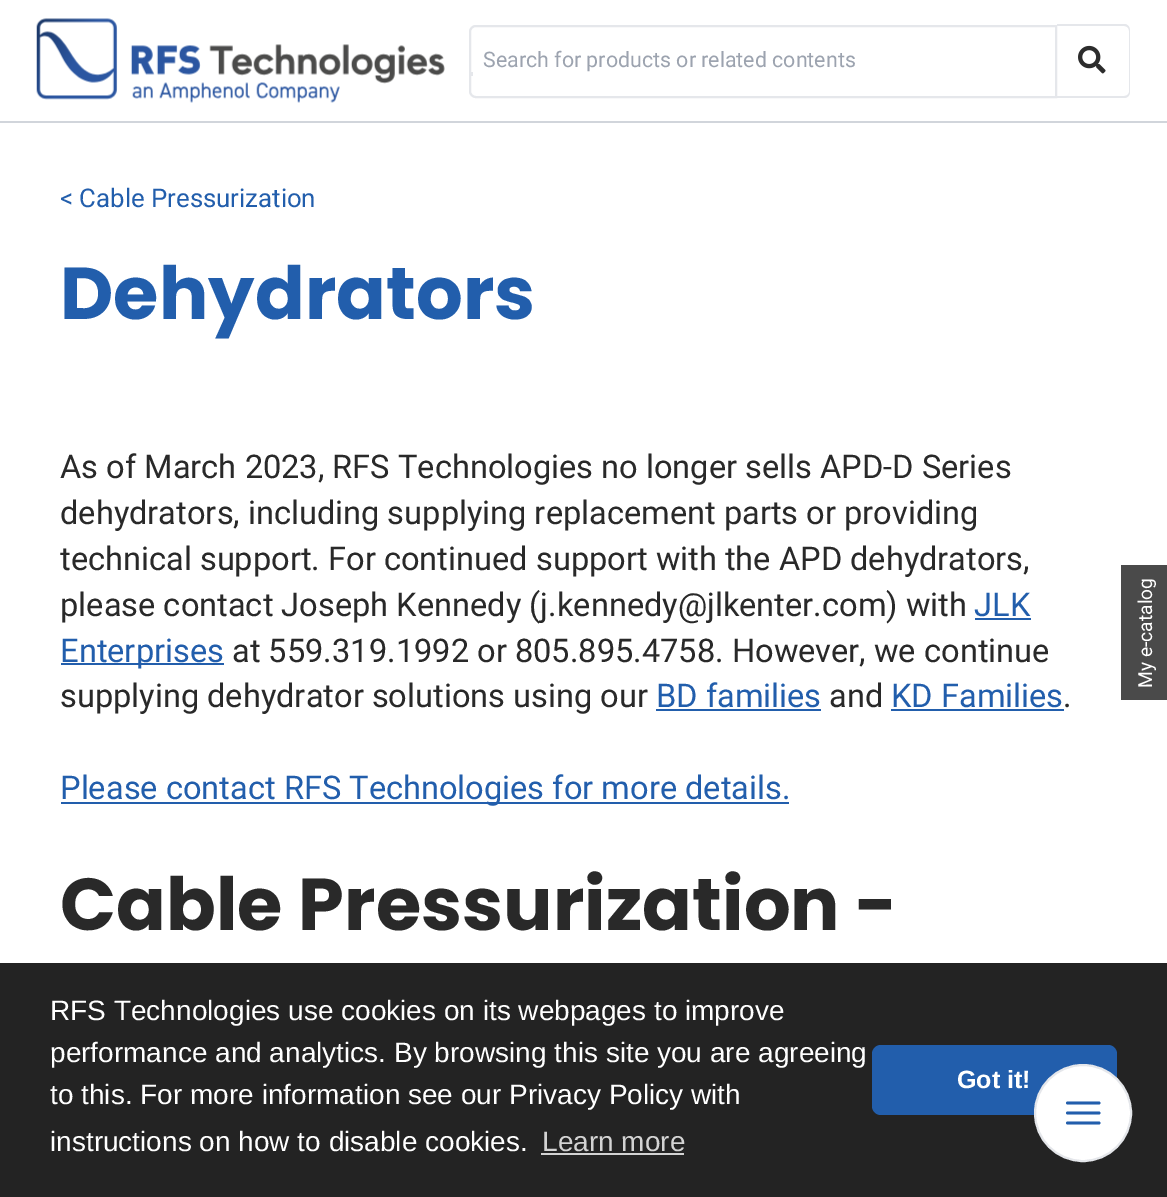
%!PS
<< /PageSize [1167 1197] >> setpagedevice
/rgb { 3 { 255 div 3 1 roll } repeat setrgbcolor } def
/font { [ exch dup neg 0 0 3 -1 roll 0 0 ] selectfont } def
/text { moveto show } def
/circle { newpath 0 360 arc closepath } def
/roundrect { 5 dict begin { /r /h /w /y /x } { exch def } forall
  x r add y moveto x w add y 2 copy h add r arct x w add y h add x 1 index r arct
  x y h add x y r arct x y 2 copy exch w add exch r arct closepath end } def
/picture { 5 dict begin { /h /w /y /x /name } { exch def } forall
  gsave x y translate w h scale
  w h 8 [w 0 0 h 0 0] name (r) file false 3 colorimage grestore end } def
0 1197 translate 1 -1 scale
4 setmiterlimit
255 255 255 rgb
0 0 1167 1197 rectfill
209 213 219 rgb
0 121 1167 2 rectfill
(img_01.rgb) 36 18 409 85 picture
229 231 235 rgb
2 setlinewidth
476 26 moveto 580 0 rlineto 0 71 rlineto -580 0 rlineto -3.5 0 -6 -2.5 -6 -6 rcurveto 0 -59 rlineto 0 -3.5 2.5 -6 6 -6 rcurveto closepath stroke
1057 24 moveto 67 0 rlineto 4 0 6 3 6 7 rcurveto 0 61 rlineto 0 3 -2 6 -6 6 rcurveto -67 0 rlineto closepath 1057 26 moveto 67 0 rlineto 3 0 5 2 5 5 rcurveto 0 61 rlineto 0 2 -2 4 -5 4 rcurveto -67 0 rlineto closepath eofill
(img_02.rgb) 1078 45 28 29 picture
469 72 4 4 rectfill
34 94 172 rgb
975 618 56 2 rectfill
61 663 163 2 rectfill
656 709 165 2 rectfill
891 709 173 2 rectfill
61 802 728 2 rectfill
74 74 74 rgb
1121 565 46 135 rectfill
35 35 35 rgb
0 963 1167 234 rectfill
211 211 211 rgb
541 1153 143 2 rectfill
34 94 172 rgb
872 1045 245 70 9 roundrect fill
255 255 255 rgb
1083 1113 48 circle gsave fill grestore
229 231 235 rgb
stroke
34 94 172 rgb
2.8 setlinewidth
1 setlinecap
1 setlinejoin
1067.5 1103 moveto 31.5 0 rlineto 1067.5 1113 moveto 31.5 0 rlineto 1067.5 1123 moveto 31.5 0 rlineto stroke
/Roboto-Regular 21.4 font
156 163 175 rgb
(Search for products or related contents) 483 67 text
/Roboto-Regular 25.75 font
34 94 172 rgb
(< Cable Pressurization) 60 207 text
/Poppins-Bold 73.5 font
(Dehydrators) 60 319 text
/Roboto-Regular 32.6 font
41 41 41 rgb
(As of March 2023, RFS Technologies no longer sells APD-D Series) 60 478 text
(dehydrators, including supplying replacement parts or providing) 60 524 text
(technical support. For continued support with the APD dehydrators,) 60 570 text
(please contact Joseph Kennedy \(j.kennedy@jlkenter.com\) with) 60 616 text
34 94 172 rgb
(JLK) 974 616 text
(Enterprises) 60 662 text
41 41 41 rgb
(at 559.319.1992 or 805.895.4758. However, we continue) 232 662 text
(supplying dehydrator solutions using our) 60 707 text
34 94 172 rgb
(BD families) 656 707 text
41 41 41 rgb
(and) 829 707 text
34 94 172 rgb
(KD Families) 891 707 text
41 41 41 rgb
(.) 1063 707 text
34 94 172 rgb
(Please contact RFS Technologies for more details.) 60 799 text
/Poppins-Bold 73.5 font
41 41 41 rgb
(Cable Pressurization -) 60 930 text
/Roboto-Regular 19.25 font
255 255 255 rgb
gsave 1152 688 translate -90 rotate 0 0 moveto (My e-catalog) show grestore
/LiberationSans-Regular 28 font
(RFS Technologies use cookies on its webpages to improve) 50 1020 text
(performance and analytics. By browsing this site you are agreeing) 50 1062 text
(to this. For more information see our Privacy Policy with) 50 1104 text
(instructions on how to disable cookies.) 50 1151 text
211 211 211 rgb
(Learn more) 542 1151 text
/LiberationSans-Bold 25 font
255 255 255 rgb
(Got it!) 957 1088 text
showpage
